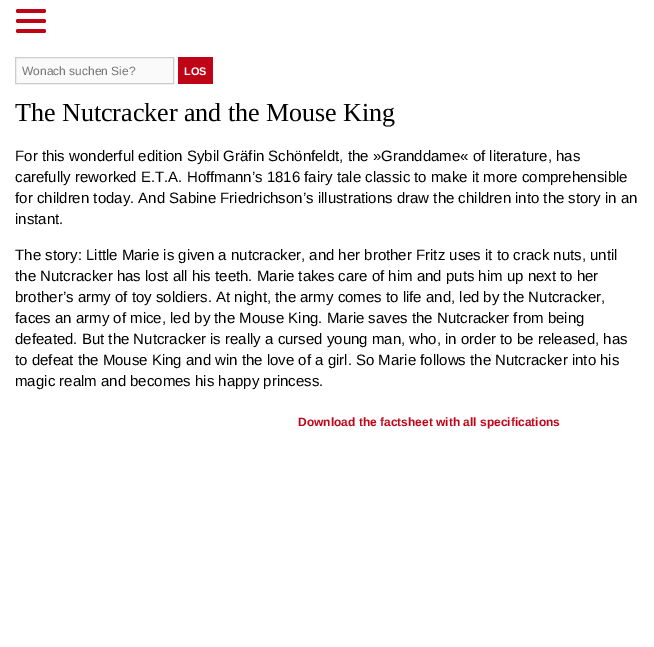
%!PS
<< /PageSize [654 647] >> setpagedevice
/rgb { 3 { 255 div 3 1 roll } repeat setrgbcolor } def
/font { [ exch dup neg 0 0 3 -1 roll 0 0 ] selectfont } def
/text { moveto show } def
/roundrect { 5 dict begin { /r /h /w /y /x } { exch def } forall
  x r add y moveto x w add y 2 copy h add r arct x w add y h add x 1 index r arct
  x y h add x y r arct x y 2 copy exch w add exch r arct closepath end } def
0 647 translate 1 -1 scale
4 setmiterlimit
255 255 255 rgb
0 0 654 647 rectfill
192 4 24 rgb
16 9 30 4 2 roundrect fill
16 19 30 4 2 roundrect fill
16 29 30 4 2 roundrect fill
250 250 250 rgb
15.5 57.5 moveto 158 0 rlineto 0 26 rlineto -158 0 rlineto closepath gsave fill grestore
204 204 204 rgb
stroke
192 4 24 rgb
178 57 35 27 rectfill
/LiberationSans-Regular 12 font
117 117 117 rgb
(Wonach suchen Sie?) 22 75 text
/LiberationSans-Bold 11 font
255 255 255 rgb
(LOS) 184 75 text
/LiberationSerif-Regular 26 font
0 0 0 rgb
(The Nutcracker and the Mouse King) 15 121 text
/LiberationSans-Regular 15 font
(For this wonderful edition Sybil Gräfin Schönfeldt, the »Granddame« of literature, has) 15 161 text
(carefully reworked E.T.A. Hoffmann’s 1816 fairy tale classic to make it more comprehensible) 15 182 text
(for children today. And Sabine Friedrichson’s illustrations draw the children into the story in an) 15 203 text
(instant.) 15 224 text
(The story: Little Marie is given a nutcracker, and her brother Fritz uses it to crack nuts, until) 15 260 text
(the Nutcracker has lost all his teeth. Marie takes care of him and puts him up next to her) 15 281 text
(brother’s army of toy soldiers. At night, the army comes to life and, led by the Nutcracker,) 15 302 text
(faces an army of mice, led by the Mouse King. Marie saves the Nutcracker from being) 15 323 text
(defeated. But the Nutcracker is really a cursed young man, who, in order to be released, has) 15 344 text
(to defeat the Mouse King and win the love of a girl. So Marie follows the Nutcracker into his) 15 365 text
(magic realm and becomes his happy princess.) 15 386 text
/LiberationSans-Bold 12 font
192 4 24 rgb
(Download the factsheet with all specifications) 298 426 text
showpage
